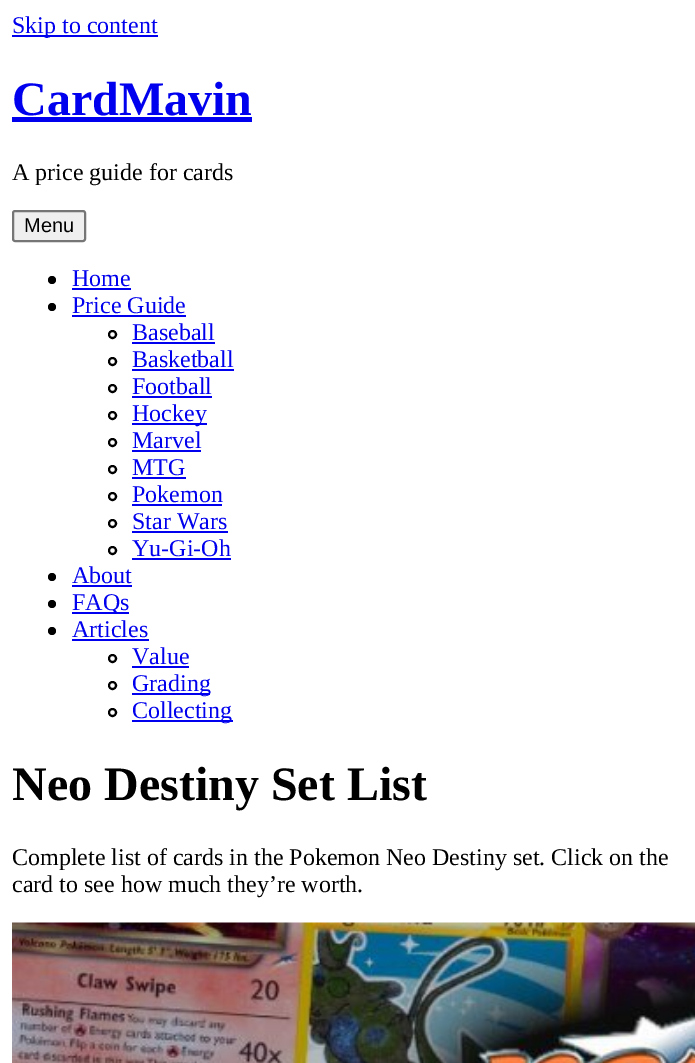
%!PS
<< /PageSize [695 1063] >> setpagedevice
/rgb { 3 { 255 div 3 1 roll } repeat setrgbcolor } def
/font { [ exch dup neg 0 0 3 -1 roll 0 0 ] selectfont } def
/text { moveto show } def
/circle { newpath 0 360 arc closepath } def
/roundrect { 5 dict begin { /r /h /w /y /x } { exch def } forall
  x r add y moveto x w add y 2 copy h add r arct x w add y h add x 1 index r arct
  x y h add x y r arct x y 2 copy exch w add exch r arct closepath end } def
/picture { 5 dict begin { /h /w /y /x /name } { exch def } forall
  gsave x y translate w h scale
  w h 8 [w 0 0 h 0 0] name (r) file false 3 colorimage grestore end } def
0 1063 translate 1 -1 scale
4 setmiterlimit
255 255 255 rgb
0 0 695 1063 rectfill
0 0 238 rgb
12 35 146 2 rectfill
12 117 240 5 rectfill
239 239 239 rgb
13 211 72 30 2 roundrect gsave fill grestore
118 118 118 rgb
2 setlinewidth
stroke
0 0 0 rgb
52 280 4 circle fill
0 0 238 rgb
72 288 59 2 rectfill
0 0 0 rgb
52 307 4 circle fill
0 0 238 rgb
72 315 114 2 rectfill
0 0 0 rgb
112.5 334.5 3.5 circle stroke
0 0 238 rgb
132 342 83 2 rectfill
0 0 0 rgb
112.5 361.5 3.5 circle stroke
0 0 238 rgb
132 369 102 2 rectfill
0 0 0 rgb
112.5 388.5 3.5 circle stroke
0 0 238 rgb
132 396 80 2 rectfill
0 0 0 rgb
112.5 415.5 3.5 circle stroke
0 0 238 rgb
132 423 75 2 rectfill
0 0 0 rgb
112.5 442.5 3.5 circle stroke
0 0 238 rgb
132 450 69 2 rectfill
0 0 0 rgb
112.5 469.5 3.5 circle stroke
0 0 238 rgb
132 477 54 2 rectfill
0 0 0 rgb
112.5 496.5 3.5 circle stroke
0 0 238 rgb
132 504 90 2 rectfill
0 0 0 rgb
112.5 523.5 3.5 circle stroke
0 0 238 rgb
132 531 96 2 rectfill
0 0 0 rgb
112.5 550.5 3.5 circle stroke
0 0 238 rgb
132 558 99 2 rectfill
0 0 0 rgb
52 577 4 circle fill
0 0 238 rgb
72 585 60 2 rectfill
0 0 0 rgb
52 604 4 circle fill
0 0 238 rgb
72 612 57 2 rectfill
0 0 0 rgb
52 631 4 circle fill
0 0 238 rgb
72 639 77 2 rectfill
0 0 0 rgb
112.5 658.5 3.5 circle stroke
0 0 238 rgb
132 666 57 2 rectfill
0 0 0 rgb
112.5 685.5 3.5 circle stroke
0 0 238 rgb
132 693 78 2 rectfill
0 0 0 rgb
112.5 712.5 3.5 circle stroke
0 0 238 rgb
132 720 101 2 rectfill
(img_01.rgb) 12 922 683 141 picture
/LiberationSerif-Regular 24 font
(Skip to content) 12 33 text
/LiberationSerif-Bold 48 font
(CardMavin) 12 115 text
/LiberationSerif-Regular 24 font
0 0 0 rgb
(A price guide for cards) 12 180 text
/LiberationSans-Regular 20 font
(Menu) 24 232 text
/LiberationSerif-Regular 24 font
0 0 238 rgb
(Home) 72 286 text
(Price Guide) 72 313 text
(Baseball) 132 340 text
(Basketball) 132 367 text
(Football) 132 394 text
(Hockey) 132 421 text
(Marvel) 132 448 text
(MTG) 132 475 text
(Pokemon) 132 502 text
(Star Wars) 132 529 text
(Yu-Gi-Oh) 132 556 text
(About) 72 583 text
(FAQs) 72 610 text
(Articles) 72 637 text
(Value) 132 664 text
(Grading) 132 691 text
(Collecting) 132 718 text
/LiberationSerif-Bold 48 font
0 0 0 rgb
(Neo Destiny Set List) 12 800 text
/LiberationSerif-Regular 24 font
(Complete list of cards in the Pokemon Neo Destiny set. Click on the) 12 865 text
(card to see how much they’re worth.) 12 892 text
showpage
